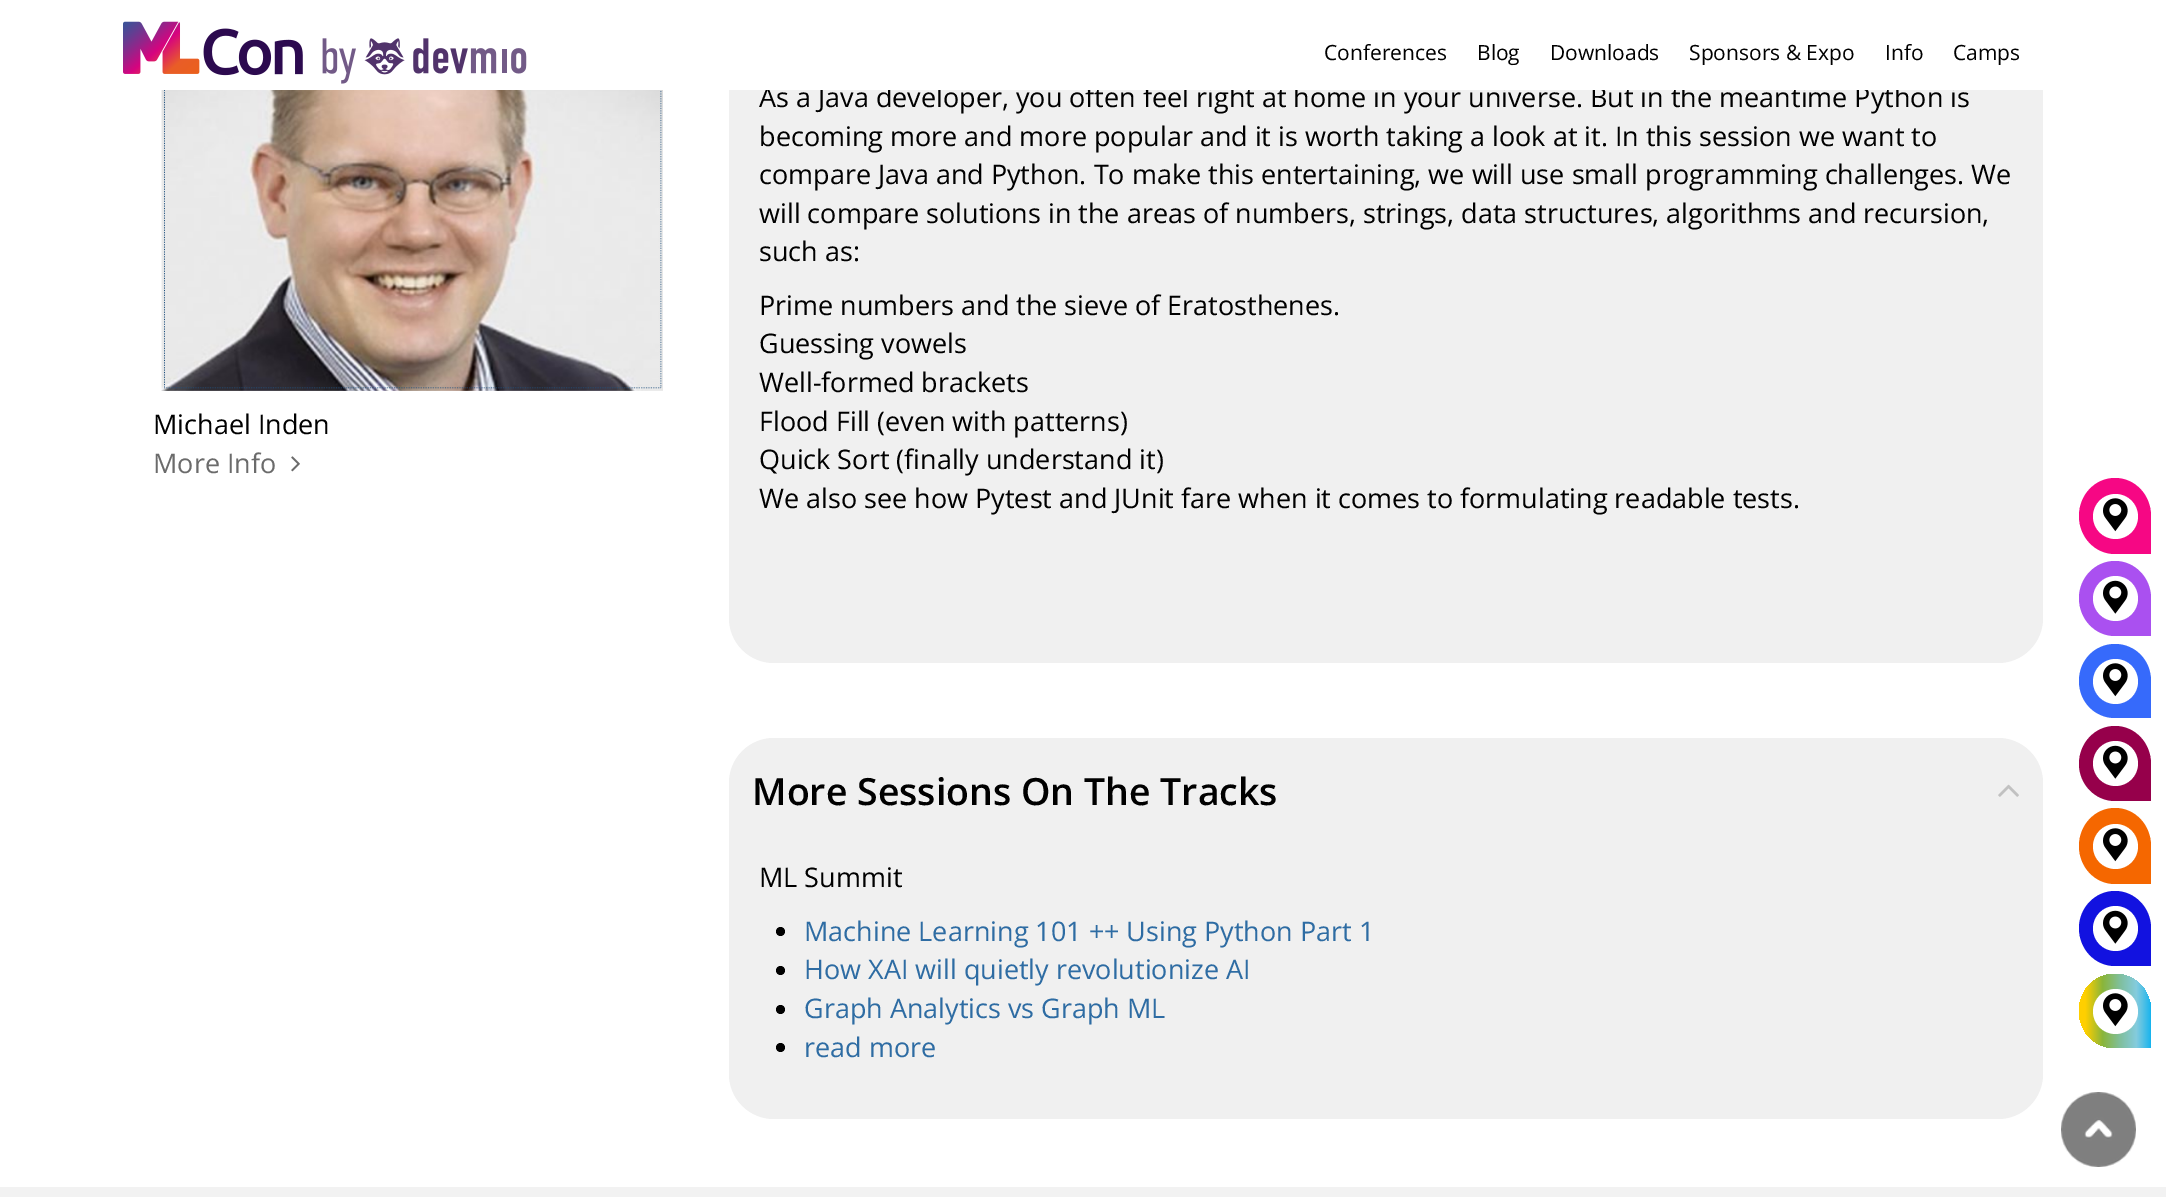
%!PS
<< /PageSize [2166 1197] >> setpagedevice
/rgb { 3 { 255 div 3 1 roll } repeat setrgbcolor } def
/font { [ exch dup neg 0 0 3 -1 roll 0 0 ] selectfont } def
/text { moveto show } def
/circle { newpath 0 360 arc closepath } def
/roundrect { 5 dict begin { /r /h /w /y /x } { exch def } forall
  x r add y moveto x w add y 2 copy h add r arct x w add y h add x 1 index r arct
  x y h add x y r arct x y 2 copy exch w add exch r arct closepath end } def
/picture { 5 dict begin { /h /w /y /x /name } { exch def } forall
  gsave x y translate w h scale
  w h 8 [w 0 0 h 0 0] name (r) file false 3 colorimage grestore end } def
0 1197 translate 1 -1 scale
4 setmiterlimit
255 255 255 rgb
0 0 2166 1197 rectfill
(img_01.rgb) 123 21 404 63 picture
(img_02.rgb) 161 90 502 301 picture
(img_03.rgb) 291 456 9 16 picture
240 240 240 rgb
729 -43 1314 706 45 roundrect fill
729 738 1314 381 45 roundrect fill
(img_04.rgb) 1998 784 21 13 picture
0 0 0 rgb
780.5 931.5 4.5 circle fill
780.5 970.5 4.5 circle fill
780.5 1009.5 4.5 circle fill
780.5 1047.5 4.5 circle fill
242 242 242 rgb
0 1187 2166 10 rectfill
246 7 132 rgb
2115 478 moveto 20 0 36 17 36 38 rcurveto 0 38 rlineto -36 0 rlineto -20 0 -36 -17 -36 -38 rcurveto 0 -21 16 -38 36 -38 rcurveto closepath fill
255 255 255 rgb
2115.5 516.5 22.5 circle fill
(img_05.rgb) 2103 498 25 34 picture
170 80 240 rgb
2115 561 moveto 20 0 36 17 36 37 rcurveto 0 38 rlineto -36 0 rlineto -20 0 -36 -17 -36 -38 rcurveto 0 -20 16 -37 36 -37 rcurveto closepath fill
255 255 255 rgb
2115.5 598.5 22.5 circle fill
(img_06.rgb) 2103 580 25 34 picture
54 106 251 rgb
2115 644 moveto 20 0 36 16 36 37 rcurveto 0 37 rlineto -36 0 rlineto -20 0 -36 -16 -36 -37 rcurveto 0 -21 16 -37 36 -37 rcurveto closepath fill
255 255 255 rgb
2115.5 681.5 22.5 circle fill
(img_05.rgb) 2103 663 25 34 picture
150 0 75 rgb
2115 726 moveto 20 0 36 17 36 38 rcurveto 0 37 rlineto -36 0 rlineto -20 0 -36 -17 -36 -37 rcurveto 0 -21 16 -38 36 -38 rcurveto closepath fill
255 255 255 rgb
2115.5 763.5 22.5 circle fill
(img_06.rgb) 2103 745 25 34 picture
245 103 0 rgb
2115 808 moveto 20 0 36 17 36 38 rcurveto 0 38 rlineto -36 0 rlineto -20 0 -36 -17 -36 -38 rcurveto 0 -21 16 -38 36 -38 rcurveto closepath fill
255 255 255 rgb
2115.5 846.5 22.5 circle fill
(img_05.rgb) 2103 828 25 34 picture
18 18 224 rgb
2115 891 moveto 20 0 36 17 36 37 rcurveto 0 38 rlineto -36 0 rlineto -20 0 -36 -17 -36 -38 rcurveto 0 -20 16 -37 36 -37 rcurveto closepath fill
255 255 255 rgb
2115.5 928.5 22.5 circle fill
(img_06.rgb) 2103 910 25 34 picture
gsave 2115 974 moveto 20 0 36 16 36 37 rcurveto 0 37 rlineto -36 0 rlineto -20 0 -36 -16 -36 -37 rcurveto 0 -21 16 -37 36 -37 rcurveto closepath clip newpath
<< /ShadingType 2 /ColorSpace /DeviceRGB /Coords [2079 1011 2151 1011] /Extend [true true] /Function << /FunctionType 3 /Domain [0 1] /Functions [<< /FunctionType 2 /Domain [0 1] /C0 [1 0.812 0] /C1 [1 0.812 0] /N 1 >> << /FunctionType 2 /Domain [0 1] /C0 [1 0.812 0] /C1 [0.541 0.71 0.227] /N 1 >> << /FunctionType 2 /Domain [0 1] /C0 [0.541 0.71 0.227] /C1 [0.502 0.749 0.612] /N 1 >> << /FunctionType 2 /Domain [0 1] /C0 [0.502 0.749 0.612] /C1 [0.518 0.8 0.871] /N 1 >> << /FunctionType 2 /Domain [0 1] /C0 [0.518 0.8 0.871] /C1 [0.094 0.706 0.933] /N 1 >>] /Bounds [0.09 0.33 0.57 0.8] /Encode [0 1 0 1 0 1 0 1 0 1] >> >> shfill grestore
2115.5 1011.5 22.5 circle fill
(img_05.rgb) 2103 993 25 34 picture
(img_07.rgb) 2061 1092 75 75 picture
/OpenSans-Regular 27 font
0 0 0 rgb
(Michael Inden) 153 434 text
107 107 107 rgb
(More Info) 153 473 text
0 0 0 rgb
(As a Java developer, you often feel right at home in your universe. But in the meantime Python is) 759 107 text
255 255 255 rgb
729 0 1314 90 rectfill
/OpenSans-Regular 21 font
0 0 0 rgb
(Camps) 1953 60 text
(Info) 1885 60 text
(Sponsors & Expo) 1689 60 text
(Downloads) 1550 60 text
(Blog) 1477 60 text
(Conferences) 1324 60 text
/OpenSans-Regular 27 font
(becoming more and more popular and it is worth taking a look at it. In this session we want to) 759 146 text
(compare Java and Python. To make this entertaining, we will use small programming challenges. We) 759 184 text
(will compare solutions in the areas of numbers, strings, data structures, algorithms and recursion,) 759 223 text
(such as:) 759 261 text
(Prime numbers and the sieve of Eratosthenes.) 759 315 text
(Guessing vowels) 759 353 text
(Well-formed brackets) 759 392 text
(Flood Fill \(even with patterns\)) 759 431 text
(Quick Sort \(finally understand it\)) 759 469 text
(We also see how Pytest and JUnit fare when it comes to formulating readable tests.) 759 508 text
/OpenSans-SemiBold 37.5 font
(More Sessions On The Tracks) 752 805 text
/OpenSans-Regular 27 font
(ML Summit) 759 887 text
46 108 163 rgb
(Machine Learning 101 ++ Using Python Part 1) 804 941 text
(How XAI will quietly revolutionize AI) 804 979 text
(Graph Analytics vs Graph ML) 804 1018 text
(read more) 804 1057 text
showpage
